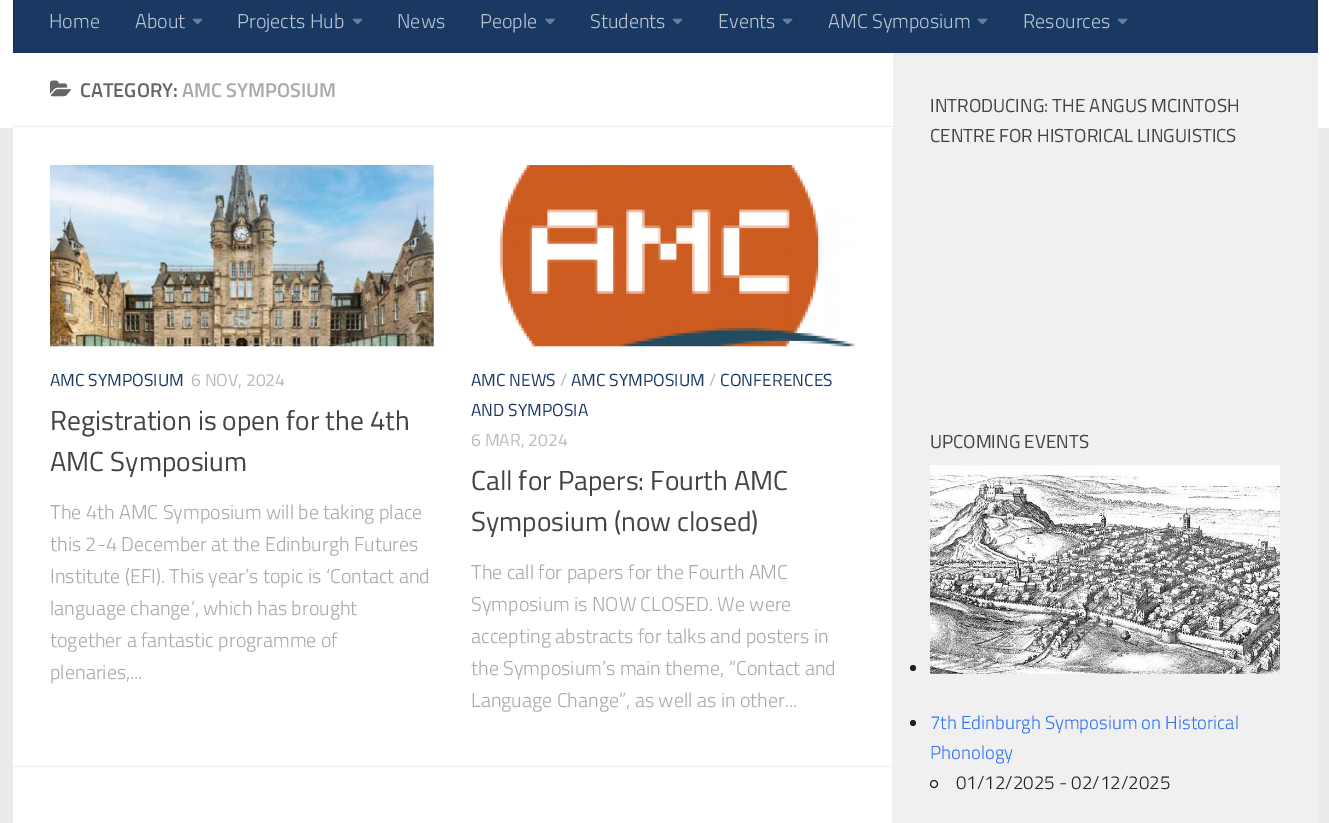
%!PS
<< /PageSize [1329 823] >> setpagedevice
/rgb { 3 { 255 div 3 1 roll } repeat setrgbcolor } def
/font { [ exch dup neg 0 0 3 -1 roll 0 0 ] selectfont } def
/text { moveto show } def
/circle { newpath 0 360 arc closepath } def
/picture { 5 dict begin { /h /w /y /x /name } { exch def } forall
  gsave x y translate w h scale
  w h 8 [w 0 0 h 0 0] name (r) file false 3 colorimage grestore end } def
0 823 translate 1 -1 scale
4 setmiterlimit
234 234 234 rgb
0 0 1329 823 rectfill
255 255 255 rgb
0 0 1329 128 rectfill
25 57 99 rgb
14 0 1304 53 rectfill
20 46 79 rgb
1316 0 1 53 rectfill
13 0 1 53 rectfill
(img_01.rgb) 192 18 11 7 picture
(img_01.rgb) 352 18 11 7 picture
(img_02.rgb) 545 18 10 7 picture
(img_01.rgb) 672 18 11 7 picture
(img_01.rgb) 782 18 11 7 picture
(img_01.rgb) 977 18 11 7 picture
(img_01.rgb) 1117 18 11 7 picture
255 255 255 rgb
13 128 879 695 rectfill
240 240 240 rgb
892 53 426 770 rectfill
255 255 255 rgb
892 53 1 75 rectfill
238 238 238 rgb
13 126 880 1 rectfill
(img_03.rgb) 50 80 21 17 picture
13 766 880 1 rectfill
(img_04.rgb) 50 165 384 182 picture
(img_05.rgb) 500 165 355 182 picture
33 33 33 rgb
913 668 3 circle fill
(img_06.rgb) 930 465 350 209 picture
913 723 3 circle fill
934 784 3.5 circle stroke
/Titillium-Light 20 font
186 196 208 rgb
(Home) 49 28 text
(About) 135 28 text
(Projects Hub) 237 28 text
(News) 397 28 text
(People) 480 28 text
(Students) 590 28 text
(Events) 718 28 text
(AMC Symposium) 828 28 text
(Resources) 1023 28 text
/Titillium-SemiBold 20 font
102 102 102 rgb
(CATEGORY:) 80 97 text
170 170 170 rgb
(AMC SYMPOSIUM) 182 97 text
/Titillium-Regular 17.5 font
25 57 99 rgb
(AMC SYMPOSIUM) 50 386 text
187 187 187 rgb
(6 NOV, 2024) 191 386 text
/Titillium-Regular 27.5 font
68 68 68 rgb
(Registration is open for the 4th) 50 430 text
(AMC Symposium) 50 471 text
/Titillium-Light 20 font
170 170 170 rgb
(The 4th AMC Symposium will be taking place) 50 519 text
(this 2-4 December at the Edinburgh Futures) 50 551 text
(Institute \(EFI\). This year’s topic is ‘Contact and) 50 583 text
(language change’, which has brought) 50 615 text
(together a fantastic programme of) 50 647 text
(plenaries,...) 50 679 text
/Titillium-Regular 17.5 font
25 57 99 rgb
(AMC NEWS) 471 386 text
187 187 187 rgb
(/) 560 386 text
25 57 99 rgb
(AMC SYMPOSIUM) 571 386 text
187 187 187 rgb
(/) 709 386 text
25 57 99 rgb
(CONFERENCES) 720 386 text
(AND SYMPOSIA) 471 416 text
187 187 187 rgb
(6 MAR, 2024) 471 446 text
/Titillium-Regular 27.5 font
68 68 68 rgb
(Call for Papers: Fourth AMC) 471 490 text
(Symposium \(now closed\)) 471 531 text
/Titillium-Light 20 font
170 170 170 rgb
(The call for papers for the Fourth AMC) 471 579 text
(Symposium is NOW CLOSED. We were) 471 611 text
(accepting abstracts for talks and posters in) 471 643 text
(the Symposium’s main theme, “Contact and) 471 675 text
(Language Change”, as well as in other...) 471 707 text
/Titillium-Regular 18.75 font
68 68 68 rgb
(INTRODUCING: THE ANGUS MCINTOSH) 930 112 text
(CENTRE FOR HISTORICAL LINGUISTICS) 930 142 text
(UPCOMING EVENTS) 930 448 text
/Titillium-Light 18.75 font
51 114 240 rgb
(7th Edinburgh Symposium on Historical) 930 729 text
(Phonology) 930 759 text
33 33 33 rgb
(01/12/2025 - 02/12/2025) 956 789 text
showpage
